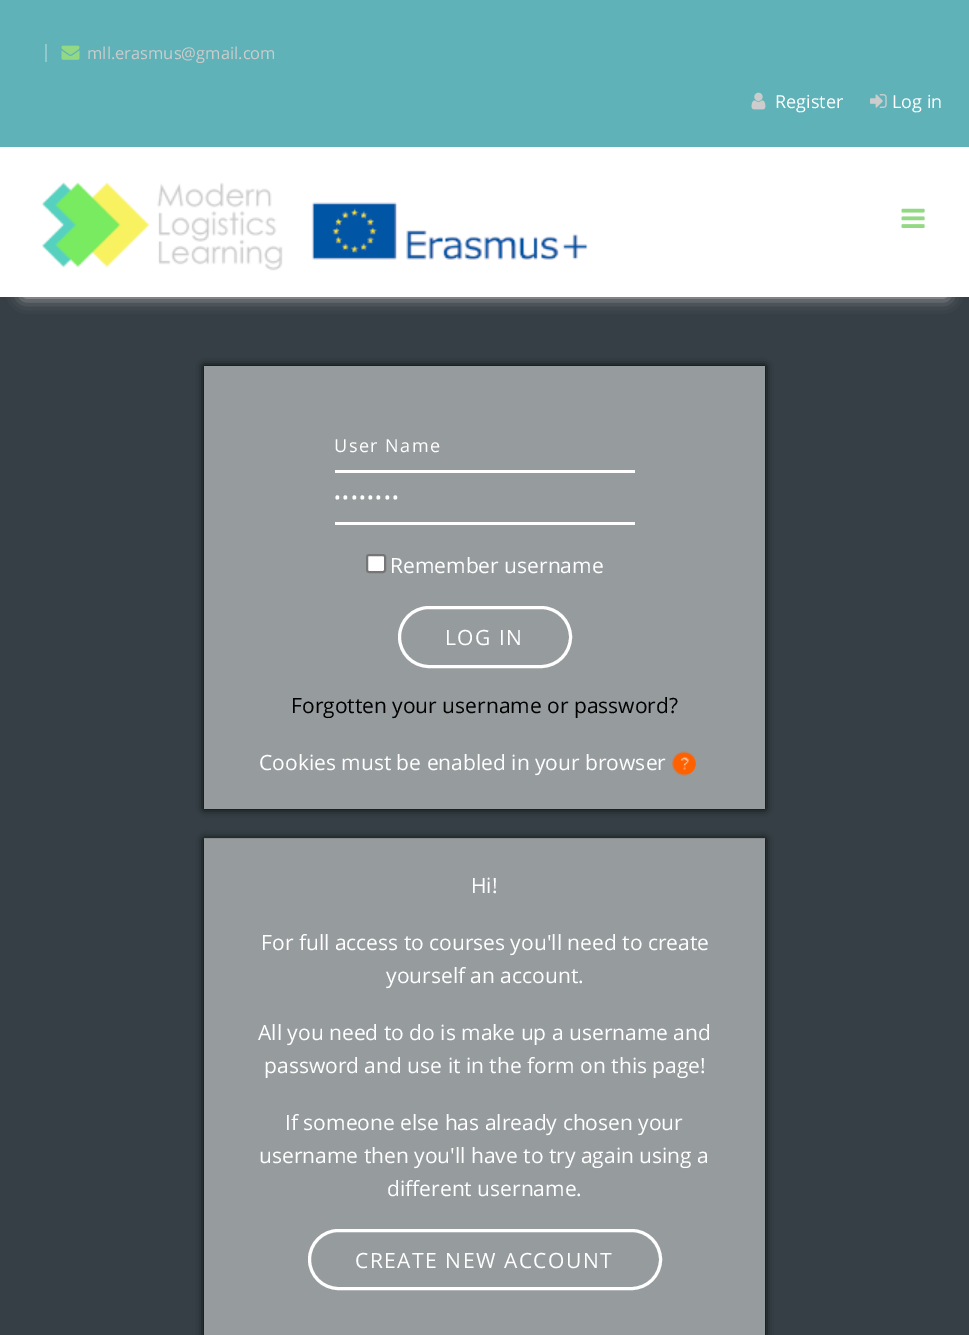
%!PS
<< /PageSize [969 1335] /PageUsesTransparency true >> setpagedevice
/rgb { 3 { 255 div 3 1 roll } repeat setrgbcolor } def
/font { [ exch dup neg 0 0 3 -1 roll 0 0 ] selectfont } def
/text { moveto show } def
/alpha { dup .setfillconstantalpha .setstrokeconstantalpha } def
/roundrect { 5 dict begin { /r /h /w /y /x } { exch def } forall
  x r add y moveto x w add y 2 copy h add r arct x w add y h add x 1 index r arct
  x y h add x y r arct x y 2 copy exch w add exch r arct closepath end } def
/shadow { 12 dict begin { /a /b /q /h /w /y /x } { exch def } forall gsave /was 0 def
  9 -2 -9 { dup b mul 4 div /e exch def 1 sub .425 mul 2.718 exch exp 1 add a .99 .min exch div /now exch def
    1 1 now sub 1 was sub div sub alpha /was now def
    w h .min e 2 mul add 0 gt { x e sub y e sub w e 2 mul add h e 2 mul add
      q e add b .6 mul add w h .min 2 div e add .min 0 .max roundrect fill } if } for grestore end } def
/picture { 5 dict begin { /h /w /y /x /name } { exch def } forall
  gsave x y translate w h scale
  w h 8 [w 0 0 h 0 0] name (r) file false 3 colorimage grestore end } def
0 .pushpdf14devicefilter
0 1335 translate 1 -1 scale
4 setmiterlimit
95 178 184 rgb
0 0 969 1335 rectfill
143 201 205 rgb
45 44 2 18 rectfill
(img_01.rgb) 61 45 19 15 picture
(img_02.rgb) 751 92 15 18 picture
(img_03.rgb) 870 94 17 14 picture
53 63 69 rgb
0 297 969 1038 rectfill
204 204 204 rgb
23 192 924 105 0 7.5 1 shadow
255 255 255 rgb
0 147 969 150 rectfill
(img_04.rgb) 41 182 547 89 picture
(img_05.rgb) 901 208 24 20 picture
gsave
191 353 moveto 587 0 rlineto 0 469 rlineto -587 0 rlineto closepath 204 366 moveto 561 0 rlineto 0 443 rlineto -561 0 rlineto closepath eoclip newpath
0 0 0 rgb
204 366 561 443 0 4 1 shadow
grestore
0.48 alpha
204 366 561 443 rectfill
1 alpha
335 470 300 3 rectfill
335 522 300 3 rectfill
367 555 18 17 2 roundrect gsave fill grestore
118 118 118 rgb
2 setlinewidth
stroke
255 255 255 rgb
3 setlinewidth
399.5 607.5 171 59 29.5 roundrect stroke
(img_06.rgb) 672 751 24 25 picture
(img_07.rgb) 679 753 17 22 picture
gsave
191 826 moveto 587 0 rlineto 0 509 rlineto -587 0 rlineto closepath 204 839 moveto 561 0 rlineto 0 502 rlineto -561 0 rlineto closepath eoclip newpath
0 0 0 rgb
204 839 561 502 0 4 1 shadow
grestore
0.48 alpha
204 838 561 497 rectfill
1 alpha
309.5 1230.5 351 58 29 roundrect stroke
/OpenSans-Regular 16.5 font
204 204 204 rgb
(mll.erasmus@gmail.com) 87 59 text
/OpenSans-Regular 18 font
255 255 255 rgb
(Register) 775 108 text
(Log in) 892 108 text
334 452 moveto 1.5 0 (User Name) ashow
334 504 moveto 1.5 0 (••••••••) ashow
/OpenSans-Regular 21 font
(Remember username) 390 573 text
445 645 moveto 1.5 0 (LOG IN) ashow
0 0 0 rgb
(Forgotten your username or password?) 291 713 text
255 255 255 rgb
(Cookies must be enabled in your browser) 259 770 text
(Hi!) 471 893 text
(For full access to courses you'll need to create) 261 950 text
(yourself an account.) 386 983 text
(All you need to do is make up a username and) 258 1040 text
(password and use it in the form on this page!) 264 1073 text
(If someone else has already chosen your) 285 1130 text
(username then you'll have to try again using a) 259 1163 text
(different username.) 387 1196 text
355 1268 moveto 1.5 0 (CREATE NEW ACCOUNT) ashow
.poppdf14devicefilter showpage
